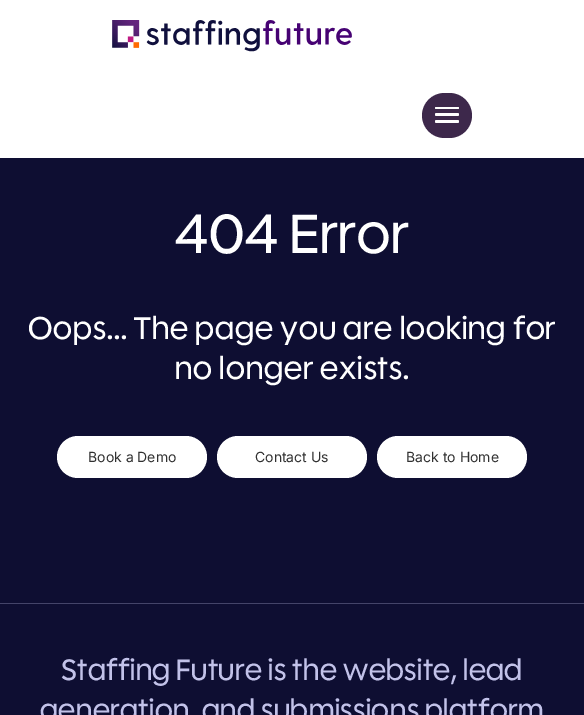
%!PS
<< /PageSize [584 715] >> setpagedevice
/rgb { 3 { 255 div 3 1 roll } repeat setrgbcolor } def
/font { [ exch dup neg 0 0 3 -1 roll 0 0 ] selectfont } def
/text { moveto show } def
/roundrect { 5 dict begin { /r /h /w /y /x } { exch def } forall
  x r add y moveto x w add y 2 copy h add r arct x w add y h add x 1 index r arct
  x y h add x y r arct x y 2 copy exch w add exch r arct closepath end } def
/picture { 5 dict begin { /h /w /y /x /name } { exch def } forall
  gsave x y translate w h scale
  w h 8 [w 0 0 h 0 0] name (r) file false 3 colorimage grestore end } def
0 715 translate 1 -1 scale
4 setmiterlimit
255 255 255 rgb
0 0 584 715 rectfill
(img_01.rgb) 112 20 240 32 picture
61 40 75 rgb
422 93 50 45 22.5 roundrect fill
255 255 255 rgb
435 113 24 3 1.5 roundrect fill
435 107 24 2 1 roundrect fill
435 120 24 3 1.5 roundrect fill
14 14 50 rgb
0 158 584 445 rectfill
255 255 255 rgb
57 436 150 42 21 roundrect fill
217 436 150 42 21 roundrect fill
377 436 150 42 21 roundrect fill
68 68 105 rgb
0 603 584 1 rectfill
gsave 0 604 moveto 584 0 rlineto 0 111 rlineto -584 0 rlineto closepath clip newpath
<< /ShadingType 2 /ColorSpace /DeviceRGB /Coords [292 604 292 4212] /Extend [true true] /Function << /FunctionType 2 /Domain [0 1] /C0 [0.055 0.055 0.196] /C1 [0.157 0.039 0.2] /N 1 >> >> shfill grestore
/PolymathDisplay-Regular 56 font
255 255 255 rgb
175 253 moveto 1 0 (404 Error) ashow
/PolymathDisplay-Regular 32 font
28 339 moveto 1 0 (Oops... The page you are looking for) ashow
175 379 moveto 1 0 (no longer exists.) ashow
/Inter-Regular 14 font
49 49 49 rgb
(Book a Demo) 88 462 text
(Contact Us) 255 462 text
(Back to Home) 406 462 text
/PolymathDisplay-Regular 30 font
194 194 233 rgb
61 680 moveto 0.65 0 (Staffing Future is the website, lead) ashow
40 720 moveto 0.65 0 (generation, and submissions platform) ashow
showpage
